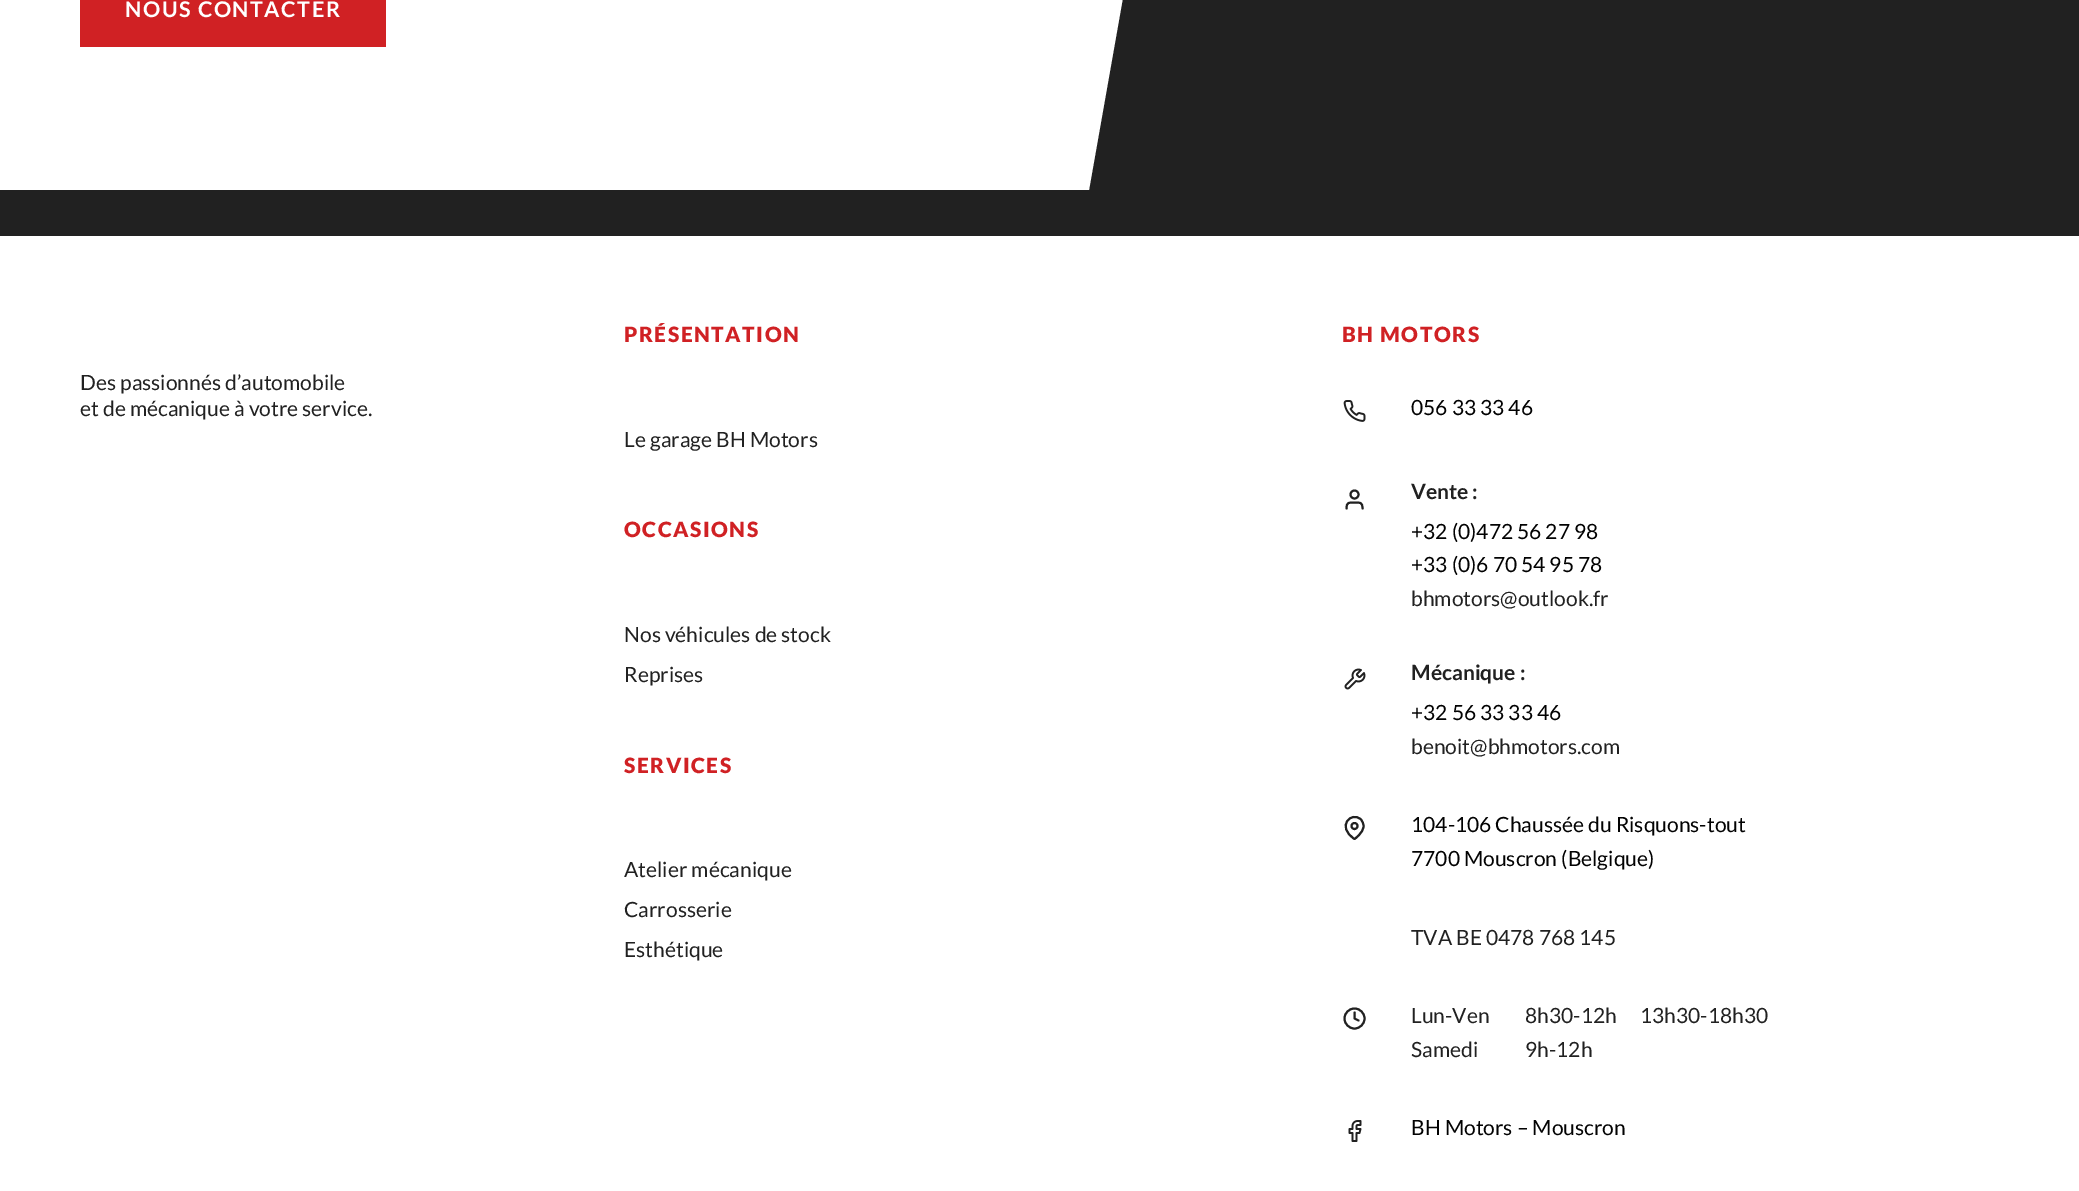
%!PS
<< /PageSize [2079 1191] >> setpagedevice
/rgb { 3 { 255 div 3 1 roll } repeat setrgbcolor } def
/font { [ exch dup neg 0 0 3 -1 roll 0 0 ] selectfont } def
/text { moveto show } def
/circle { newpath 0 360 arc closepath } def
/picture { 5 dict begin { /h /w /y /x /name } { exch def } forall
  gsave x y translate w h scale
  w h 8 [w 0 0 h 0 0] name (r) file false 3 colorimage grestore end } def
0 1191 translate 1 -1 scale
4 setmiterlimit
33 33 33 rgb
0 0 2079 1191 rectfill
255 255 255 rgb
-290 -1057 moveto 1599 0 rlineto -220 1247 rlineto -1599 0 rlineto closepath fill
208 33 36 rgb
80 0 306 47 rectfill
255 255 255 rgb
0 236 2079 955 rectfill
(img_01.rgb) 1343 400 23 22 picture
33 33 33 rgb
2 setlinewidth
1354.5 494.5 4 circle stroke
1 setlinecap
1 setlinejoin
1362.5 508.5 moveto 0 -6.5 -2.5 -6 -8 -6 rcurveto -5.5 0 -8 -0.5 -8 6 rcurveto stroke
(img_02.rgb) 1344 668 22 22 picture
1363.5 826 moveto 0 7 -9 13 -9 13 rcurveto -19 -12.5 -3 -28.5 6.5 -19.5 rcurveto 1.5 2 2.5 4 2.5 6.5 rcurveto closepath stroke
0 setlinecap
0 setlinejoin
1354.5 826 3 circle stroke
1354.5 1018.5 10 circle stroke
1 setlinecap
1 setlinejoin
1354.5 1012.5 moveto 0 6 rlineto 4 2 rlineto stroke
(img_03.rgb) 1348 1120 14 22 picture
/Lato-Bold 21.6 font
255 255 255 rgb
125 17 moveto 1.5 0 (NOUS CONTACTER) ashow
/Lato-Regular 21 font
33 33 33 rgb
(Des passionnés d’automobile) 80 390 text
(et de mécanique à votre service.) 80 416 text
/Lato-Black 21 font
208 33 36 rgb
624 342 moveto 1.5 0 (PRÉSENTATION) ashow
/Lato-Regular 21 font
33 33 33 rgb
(Le garage BH Motors) 624 447 text
/Lato-Black 21 font
208 33 36 rgb
624 537 moveto 1.5 0 (OCCASIONS) ashow
/Lato-Regular 21 font
33 33 33 rgb
(Nos véhicules de stock) 624 642 text
(Reprises) 624 682 text
/Lato-Black 21 font
208 33 36 rgb
624 773 moveto 1.5 0 (SERVICES) ashow
/Lato-Regular 21 font
33 33 33 rgb
(Atelier mécanique) 624 877 text
(Carrosserie) 624 917 text
(Esthétique) 624 957 text
/Lato-Black 21 font
208 33 36 rgb
1342 342 moveto 1.5 0 (BH MOTORS) ashow
/Lato-Regular 21 font
2 2 2 rgb
(056 33 33 46) 1411 415 text
/Lato-Bold 21 font
33 33 33 rgb
(Vente :) 1411 499 text
/Lato-Regular 21 font
2 2 2 rgb
(+32 \(0\)472 56 27 98) 1411 539 text
(+33 \(0\)6 70 54 95 78) 1411 572 text
33 33 33 rgb
(bhmotors@outlook.fr) 1411 606 text
/Lato-Bold 21 font
(Mécanique :) 1411 680 text
/Lato-Regular 21 font
2 2 2 rgb
(+32 56 33 33 46) 1411 720 text
33 33 33 rgb
(benoit@bhmotors.com) 1411 754 text
2 2 2 rgb
(104-106 Chaussée du Risquons-tout) 1411 832 text
(7700 Mouscron \(Belgique\)) 1411 866 text
33 33 33 rgb
(TVA BE 0478 768 145) 1411 945 text
(Lun-Ven) 1411 1023 text
(8h30-12h) 1525 1023 text
(13h30-18h30) 1640 1023 text
(Samedi) 1411 1057 text
(9h-12h) 1525 1057 text
2 2 2 rgb
(BH Motors – Mouscron) 1411 1135 text
showpage
